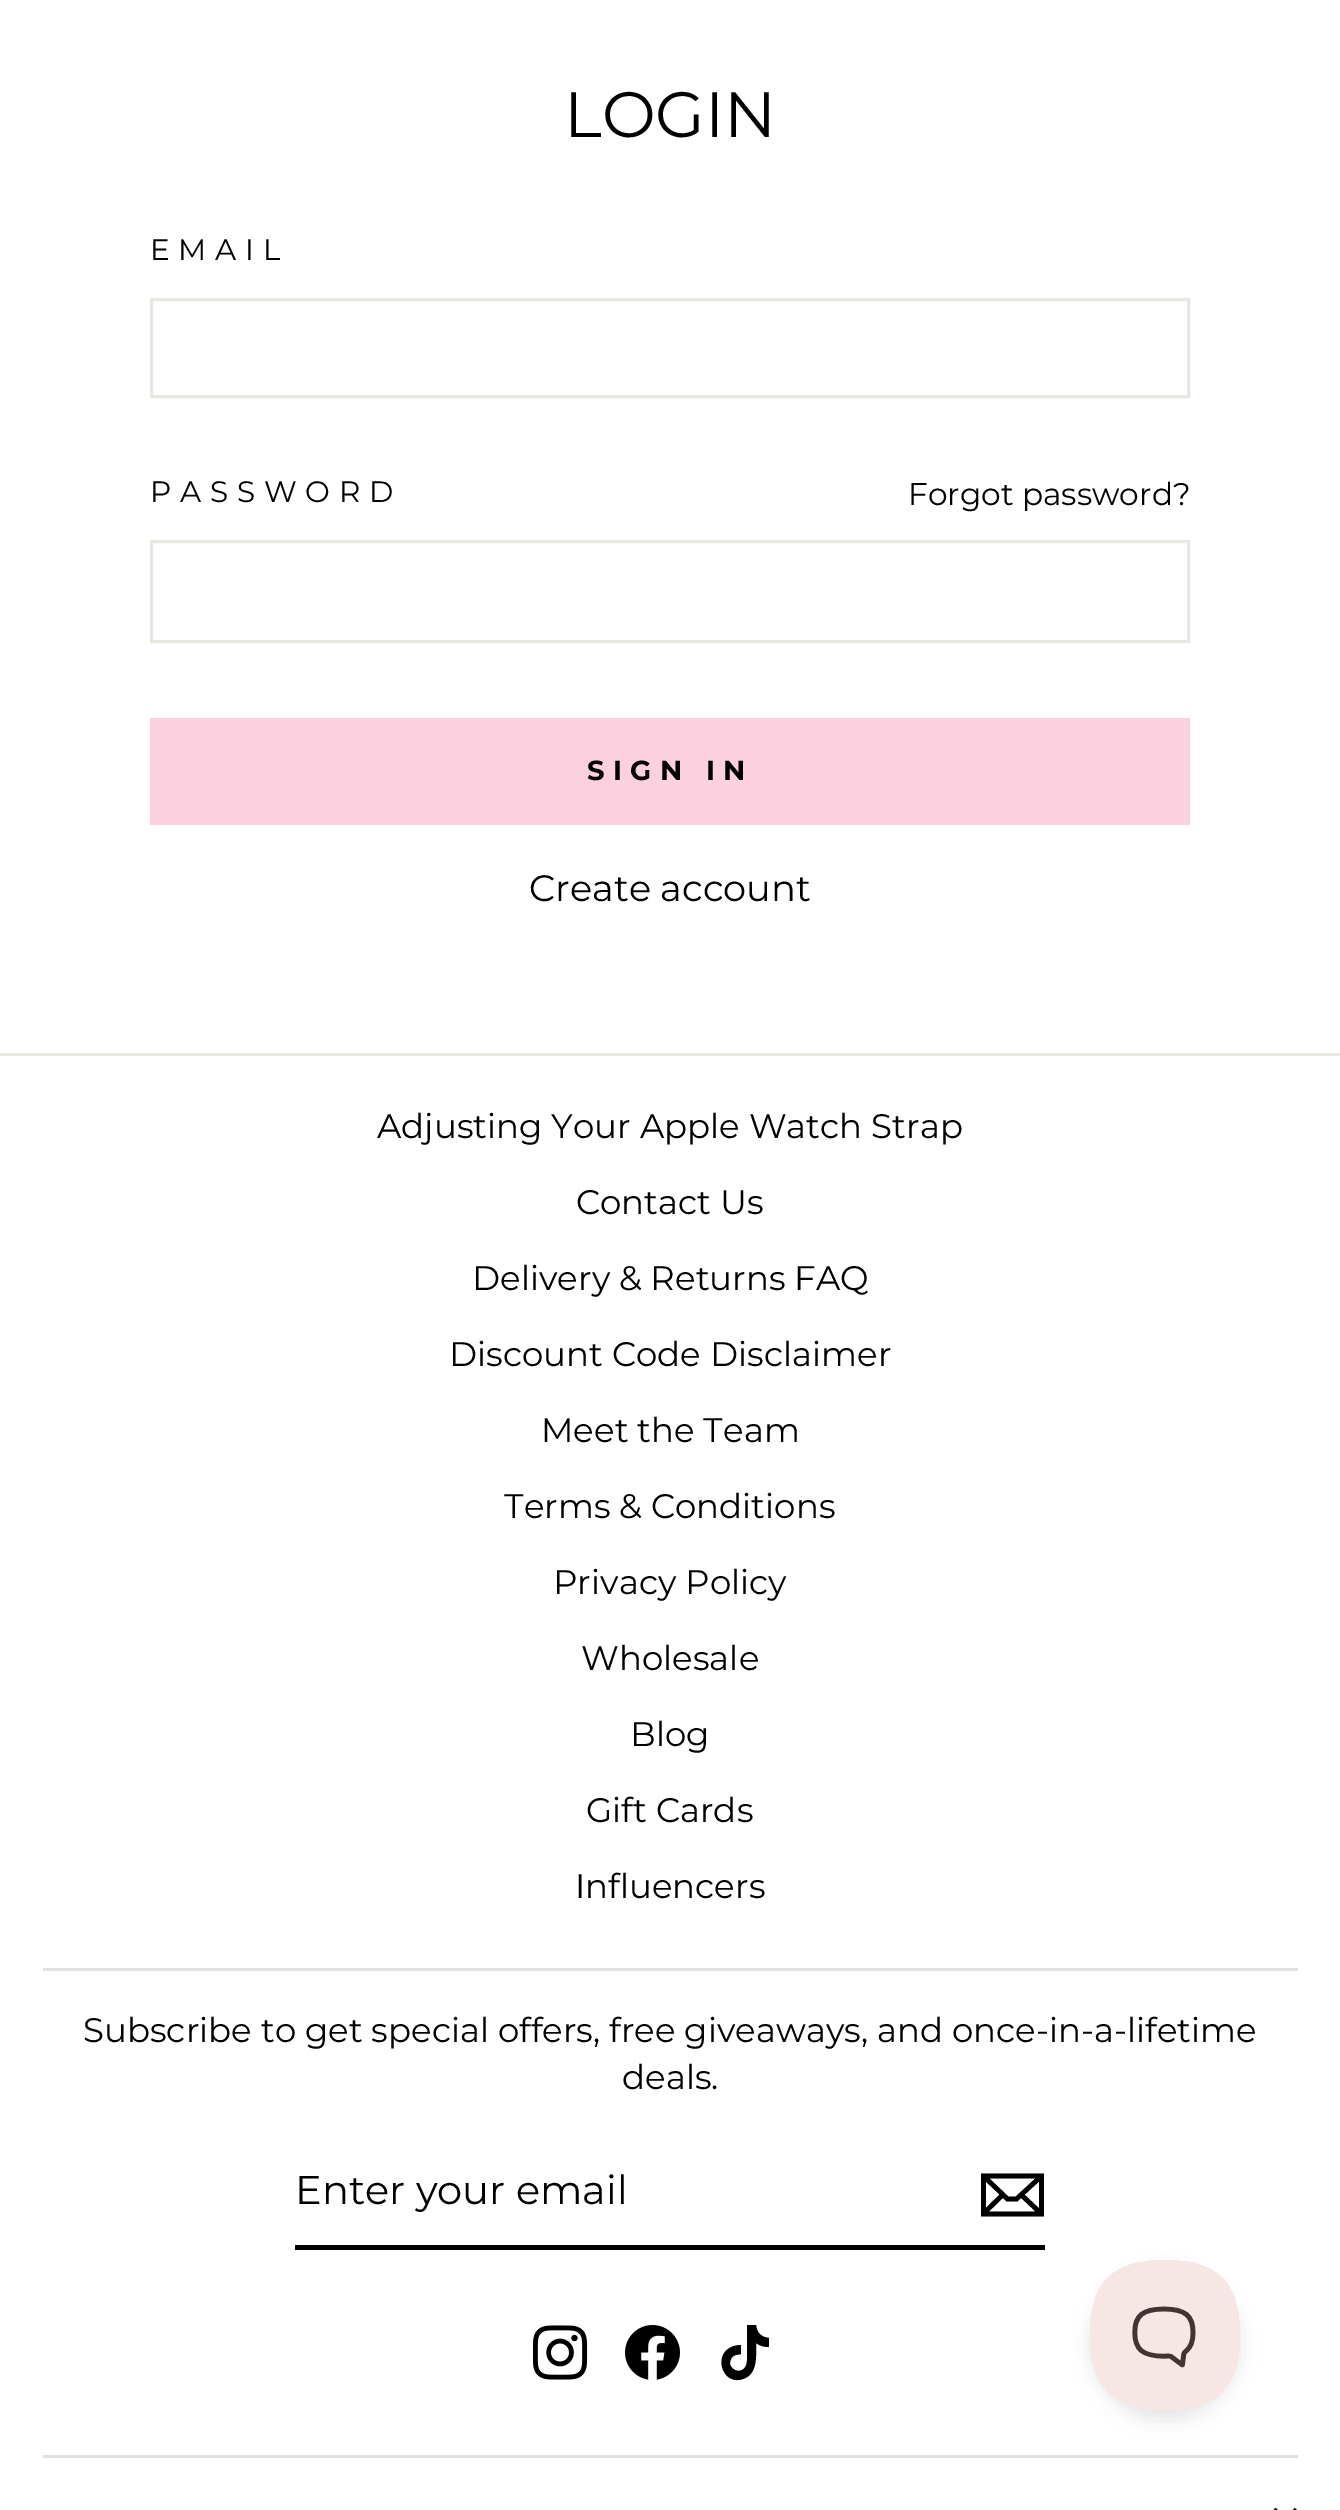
%!PS
<< /PageSize [1340 2510] /PageUsesTransparency true >> setpagedevice
/rgb { 3 { 255 div 3 1 roll } repeat setrgbcolor } def
/font { [ exch dup neg 0 0 3 -1 roll 0 0 ] selectfont } def
/text { moveto show } def
/alpha { dup .setfillconstantalpha .setstrokeconstantalpha } def
/roundrect { 5 dict begin { /r /h /w /y /x } { exch def } forall
  x r add y moveto x w add y 2 copy h add r arct x w add y h add x 1 index r arct
  x y h add x y r arct x y 2 copy exch w add exch r arct closepath end } def
/shadow { 12 dict begin { /a /b /q /h /w /y /x } { exch def } forall gsave /was 0 def
  9 -2 -9 { dup b mul 4 div /e exch def 1 sub .425 mul 2.718 exch exp 1 add a .99 .min exch div /now exch def
    1 1 now sub 1 was sub div sub alpha /was now def
    w h .min e 2 mul add 0 gt { x e sub y e sub w e 2 mul add h e 2 mul add
      q e add b .6 mul add w h .min 2 div e add .min 0 .max roundrect fill } if } for grestore end } def
/picture { 5 dict begin { /h /w /y /x /name } { exch def } forall
  gsave x y translate w h scale
  w h 8 [w 0 0 h 0 0] name (r) file false 3 colorimage grestore end } def
0 .pushpdf14devicefilter
0 2510 translate 1 -1 scale
4 setmiterlimit
255 255 255 rgb
0 0 1340 2510 rectfill
232 232 225 rgb
3 setlinewidth
151.5 299.5 1037 97 rectstroke
151.5 541.5 1037 100 rectstroke
252 209 223 rgb
150 718 1040 107 rectfill
232 232 225 rgb
0 1053 1340 3 rectfill
224 224 224 rgb
43 1968 1255 3 rectfill
0 0 0 rgb
295 2245 750 5 rectfill
4.7 setlinewidth
1041.5 2214 moveto -58 0 rlineto 0 -38 rlineto 58 0 rlineto closepath 983.5 2176 moveto 24 23 rlineto 9 0 rlineto 25 -23 rlineto 1003 2194.5 moveto -19 18.5 rlineto 1041 2213.5 moveto -20 -19 rlineto stroke
(img_01.rgb) 533 2325 55 55 picture
(img_02.rgb) 625 2325 55 55 picture
756 2325 moveto 1 8 5 12 13 13 rcurveto 0 9 rlineto -5 0 -9 -1 -13 -4 rcurveto 0 13 2 31 -13 36 rcurveto -23 8 -33 -33 -2 -34 rcurveto 0 9 rlineto -5 1 rlineto -4 1 -6 4 -6 9 rcurveto 2 9 18 11 17 -6 rcurveto 0 -33 rlineto closepath fill
224 224 224 rgb
43 2455 1255 3 rectfill
0 0 0 rgb
4.5 setlinewidth
1274 2509.5 moveto 11.5 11 rlineto 11 -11 rlineto stroke
1090 2270 150 150 75 9 0.1 shadow
(img_03.rgb) 1090 2260 150 150 picture
/Montserrat-Thin 64 font
(LOGIN) 564 137 text
/Montserrat-Thin 29.5 font
150 260 moveto 8.75 0 (EMAIL) ashow
150 502 moveto 8.75 0 (PASSWORD) ashow
/Montserrat-Thin 31.25 font
(Forgot password?) 908 505 text
/Montserrat-Bold 27.5 font
587 780 moveto 8.25 0 (SIGN IN) ashow
/Montserrat-Thin 36.75 font
(Create account) 529 901 text
/Montserrat-Thin 34 font
(Adjusting Your Apple Watch Strap) 377 1138 text
(Contact Us) 576 1214 text
(Delivery & Returns FAQ) 472 1290 text
(Discount Code Disclaimer) 449 1366 text
(Meet the Team) 541 1442 text
(Terms & Conditions) 504 1518 text
(Privacy Policy) 553 1594 text
(Wholesale) 581 1670 text
(Blog) 630 1746 text
(Gift Cards) 586 1822 text
(Influencers) 575 1898 text
(Subscribe to get special offers, free giveaways, and once-in-a-lifetime) 83 2042 text
(deals.) 622 2089 text
/Montserrat-Thin 40 font
(Enter your email) 295 2204 text
.poppdf14devicefilter showpage
